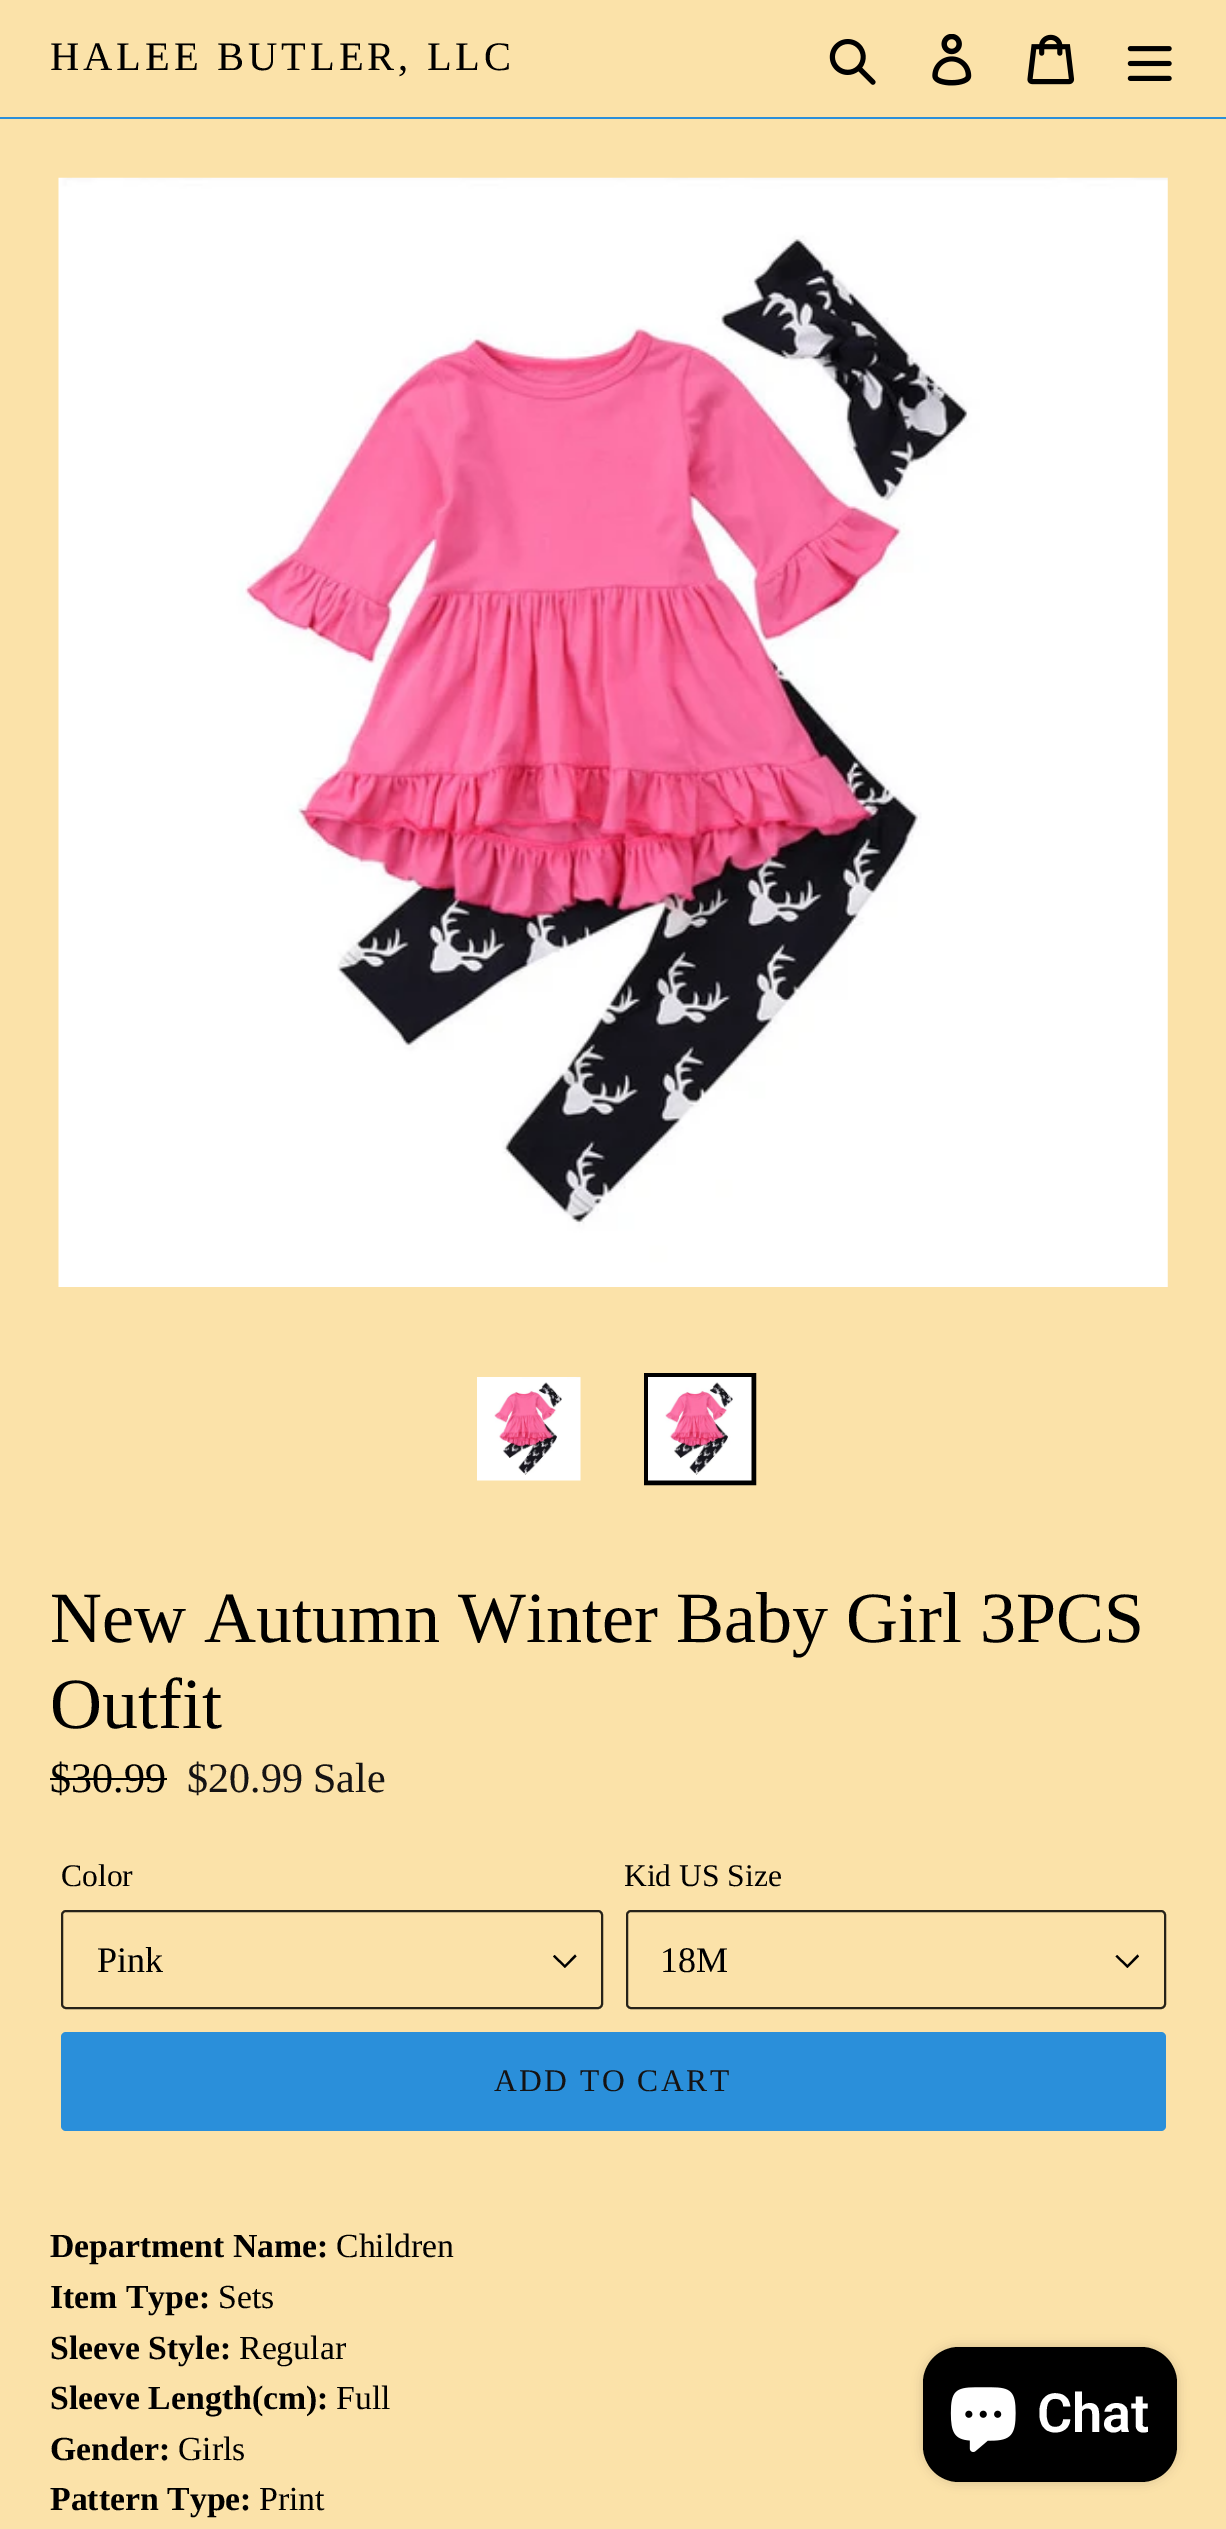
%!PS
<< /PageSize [1226 2529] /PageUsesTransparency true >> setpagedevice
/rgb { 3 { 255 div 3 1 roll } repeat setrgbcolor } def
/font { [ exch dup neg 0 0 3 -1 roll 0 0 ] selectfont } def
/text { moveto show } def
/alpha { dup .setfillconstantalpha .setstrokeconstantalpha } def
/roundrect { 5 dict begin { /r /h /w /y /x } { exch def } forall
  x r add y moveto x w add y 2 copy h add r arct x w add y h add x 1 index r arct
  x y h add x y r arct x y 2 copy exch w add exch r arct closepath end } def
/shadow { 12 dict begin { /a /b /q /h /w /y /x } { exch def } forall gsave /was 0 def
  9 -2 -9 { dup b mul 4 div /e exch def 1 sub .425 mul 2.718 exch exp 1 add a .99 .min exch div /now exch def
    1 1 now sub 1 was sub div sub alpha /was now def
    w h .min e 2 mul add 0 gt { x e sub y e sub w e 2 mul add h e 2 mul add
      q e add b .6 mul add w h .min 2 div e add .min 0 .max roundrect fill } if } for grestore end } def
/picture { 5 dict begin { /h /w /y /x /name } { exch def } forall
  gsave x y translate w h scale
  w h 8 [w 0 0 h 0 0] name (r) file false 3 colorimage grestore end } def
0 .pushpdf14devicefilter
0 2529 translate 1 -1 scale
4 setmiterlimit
251 226 169 rgb
0 0 1226 2529 rectfill
42 143 218 rgb
0 117 1226 2 rectfill
(img_01.rgb) 829 39 47 46 picture
(img_02.rgb) 932 34 40 52 picture
(img_03.rgb) 1027 34 48 51 picture
(img_04.rgb) 1127 46 45 35 picture
(img_05.rgb) 58 177 1110 1110 picture
(img_06.rgb) 477 1377 104 104 picture
0 0 0 rgb
5 setlinewidth
646.5 1375.5 107 107 rectstroke
(img_07.rgb) 648 1377 104 104 picture
50 1778 117 2 rectfill
565 1968 moveto -12 -11.5 rlineto 1.5 -1.5 rlineto 10.5 10 rlineto 10 -10.5 rlineto 1.5 2 rlineto closepath fill
38 34 25 rgb
2 setlinewidth
62 1911 540 97 4 roundrect stroke
0 0 0 rgb
1127.5 1968 moveto -12 -11.5 rlineto 1.5 -1.5 rlineto 10.5 10 rlineto 10 -10.5 rlineto 1.5 2 rlineto closepath fill
38 34 25 rgb
627 1911 538 97 4 roundrect stroke
42 143 218 rgb
61 2032 1105 99 5 roundrect fill
0 0 0 rgb
923 2347 254 135 36 5.5 0.15 shadow
923 2347 254 135 36 roundrect fill
(img_08.rgb) 950 2387 66 65 picture
/LiberationSerif-Regular 40.5 font
50 70 moveto 4 0 (HALEE BUTLER, LLC) ashow
/LiberationSerif-Regular 72 font
(New Autumn Winter Baby Girl 3PCS) 50 1642 text
(Outfit) 50 1728 text
/LiberationSerif-Regular 42 font
($30.99) 50 1792 text
21 19 19 rgb
($20.99 Sale) 187 1792 text
/LiberationSerif-Regular 31.5 font
0 0 0 rgb
(Color) 61 1886 text
/LiberationSerif-Regular 36 font
(Pink) 97 1972 text
/LiberationSerif-Regular 31.5 font
(Kid US Size) 624 1886 text
/LiberationSerif-Regular 36 font
(18M) 660 1972 text
/LiberationSerif-Regular 31.5 font
21 19 19 rgb
494 2091 moveto 2.5 0 (ADD TO CART) ashow
/LiberationSerif-Bold 33.75 font
0 0 0 rgb
(Department Name:) 50 2257 text
/LiberationSerif-Regular 33.75 font
(Children) 336 2257 text
/LiberationSerif-Bold 33.75 font
(Item Type:) 50 2308 text
/LiberationSerif-Regular 33.75 font
(Sets) 218 2308 text
/LiberationSerif-Bold 33.75 font
(Sleeve Style:) 50 2359 text
/LiberationSerif-Regular 33.75 font
(Regular) 239 2359 text
/LiberationSerif-Bold 33.75 font
(Sleeve Length\(cm\):) 50 2409 text
/LiberationSerif-Regular 33.75 font
(Full) 336 2409 text
/LiberationSerif-Bold 33.75 font
(Gender:) 50 2460 text
/LiberationSerif-Regular 33.75 font
(Girls) 178 2460 text
/LiberationSerif-Bold 33.75 font
(Pattern Type:) 50 2510 text
/LiberationSerif-Regular 33.75 font
(Print) 259 2510 text
/Roboto-SemiBold 54 font
255 255 255 rgb
(Chat) 1037 2432 text
.poppdf14devicefilter showpage
